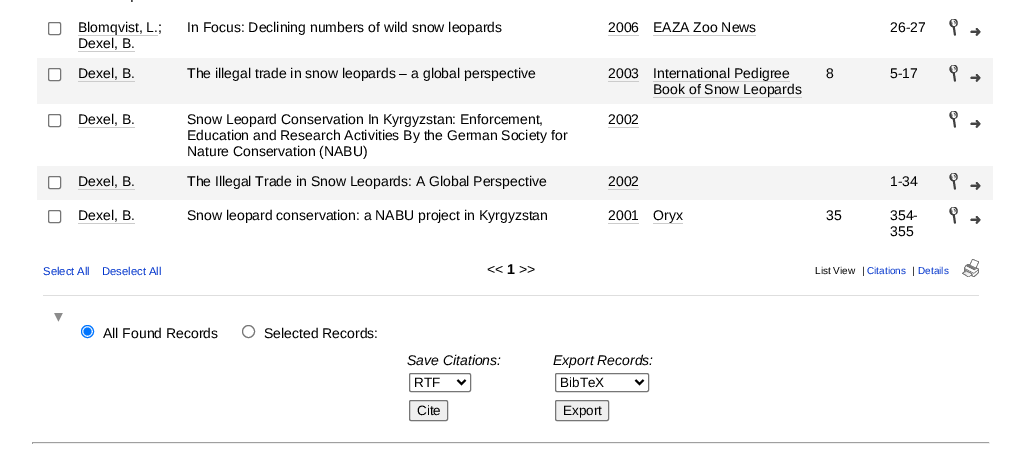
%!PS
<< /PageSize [1022 458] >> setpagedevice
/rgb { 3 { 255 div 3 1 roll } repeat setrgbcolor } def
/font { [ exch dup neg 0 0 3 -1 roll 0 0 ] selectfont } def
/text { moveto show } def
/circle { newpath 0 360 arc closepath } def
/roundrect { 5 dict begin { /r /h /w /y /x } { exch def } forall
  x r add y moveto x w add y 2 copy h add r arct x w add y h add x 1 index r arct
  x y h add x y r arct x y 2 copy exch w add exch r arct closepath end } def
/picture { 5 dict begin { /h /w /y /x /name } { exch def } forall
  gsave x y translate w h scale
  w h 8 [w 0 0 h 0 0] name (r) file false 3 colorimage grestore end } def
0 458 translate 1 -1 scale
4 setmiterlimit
255 255 255 rgb
0 0 1022 458 rectfill
(img_01.rgb) 131 0 2 2 picture
118 118 118 rgb
48.5 22.5 12 12 1.5 roundrect stroke
204 204 204 rgb
78 35 80 1 rectfill
78 51 57 1 rectfill
608 35 31 1 rectfill
653 35 103 1 rectfill
(img_02.rgb) 949 19 9 17 picture
(img_03.rgb) 970 28 11 8 picture
244 244 244 rgb
37 58 956 46 rectfill
255 255 255 rgb
48.5 68.5 12 12 1.5 roundrect gsave fill grestore
118 118 118 rgb
stroke
204 204 204 rgb
78 81 57 1 rectfill
608 81 31 1 rectfill
653 81 137 1 rectfill
653 97 149 1 rectfill
(img_04.rgb) 949 65 9 17 picture
(img_05.rgb) 970 74 11 8 picture
118 118 118 rgb
48.5 114.5 12 12 1.5 roundrect stroke
204 204 204 rgb
78 127 57 1 rectfill
608 127 31 1 rectfill
(img_02.rgb) 949 111 9 17 picture
(img_03.rgb) 970 120 11 8 picture
244 244 244 rgb
37 166 956 34 rectfill
255 255 255 rgb
48.5 176.5 12 12 1.5 roundrect gsave fill grestore
118 118 118 rgb
stroke
204 204 204 rgb
78 189 57 1 rectfill
608 189 31 1 rectfill
(img_04.rgb) 949 173 9 17 picture
(img_05.rgb) 970 182 11 8 picture
118 118 118 rgb
48.5 210.5 12 12 1.5 roundrect stroke
204 204 204 rgb
78 223 57 1 rectfill
608 223 31 1 rectfill
653 223 30 1 rectfill
(img_02.rgb) 949 207 9 17 picture
(img_03.rgb) 970 216 11 8 picture
(img_06.rgb) 962 259 17 18 picture
222 222 222 rgb
43 295 936 1 rectfill
(img_07.rgb) 54 313 9 9 picture
0 117 255 rgb
87.5 331.5 6 circle stroke
87.5 331.5 4 circle fill
118 118 118 rgb
248.5 331.5 6 circle stroke
409.5 373.5 61 18 1.5 roundrect stroke
0 0 0 rgb
2 setlinewidth
457.5 380 moveto 4 4 rlineto 4 -4 rlineto stroke
239 239 239 rgb
409.5 400.5 38 20 1.5 roundrect gsave fill grestore
118 118 118 rgb
1 setlinewidth
stroke
555.5 373.5 93 18 1.5 roundrect stroke
0 0 0 rgb
2 setlinewidth
635.5 380 moveto 4 4 rlineto 4 -4 rlineto stroke
239 239 239 rgb
555.5 400.5 53 20 1.5 roundrect gsave fill grestore
118 118 118 rgb
1 setlinewidth
stroke
159 159 159 rgb
32 442 958 1 rectfill
238 238 238 rgb
989 442 1 2 rectfill
32 443 958 1 rectfill
159 159 159 rgb
32 442 1 2 rectfill
/LiberationSans-Regular 14 font
0 0 0 rgb
(Blomqvist, L.;) 78 32 text
(Dexel, B.) 78 48 text
(In Focus: Declining numbers of wild snow leopards) 187 32 text
(2006) 608 32 text
(EAZA Zoo News) 653 32 text
(26-27) 890 32 text
(Dexel, B.) 78 78 text
(The illegal trade in snow leopards – a global perspective) 187 78 text
(2003) 608 78 text
(International Pedigree) 653 78 text
(Book of Snow Leopards) 653 94 text
(8) 826 78 text
(5-17) 890 78 text
(Dexel, B.) 78 124 text
(Snow Leopard Conservation In Kyrgyzstan: Enforcement,) 187 124 text
(Education and Research Activities By the German Society for) 187 140 text
(Nature Conservation \(NABU\)) 187 156 text
(2002) 608 124 text
(Dexel, B.) 78 186 text
(The Illegal Trade in Snow Leopards: A Global Perspective) 187 186 text
(2002) 608 186 text
(1-34) 890 186 text
(Dexel, B.) 78 220 text
(Snow leopard conservation: a NABU project in Kyrgyzstan) 187 220 text
(2001) 608 220 text
(Oryx) 653 220 text
(35) 826 220 text
(354-) 890 220 text
(355) 890 236 text
/LiberationSans-Regular 11.25 font
0 51 204 rgb
(Select All) 43 275 text
(Deselect All) 102 275 text
/LiberationSans-Regular 14 font
0 0 0 rgb
(<<) 487 274 text
/LiberationSans-Bold 14 font
(1) 507 274 text
/LiberationSans-Regular 14 font
(>>) 519 274 text
/LiberationSans-Regular 10 font
(List View) 815 274 text
(|) 862 274 text
0 51 204 rgb
(Citations) 867 274 text
0 0 0 rgb
(|) 912 274 text
0 51 204 rgb
(Details) 918 274 text
/LiberationSans-Regular 14 font
0 0 0 rgb
(All Found Records) 103 338 text
(Selected Records:) 264 338 text
/LiberationSans-Italic 14 font
(Save Citations:) 407 365 text
/LiberationSans-Regular 13.5 font
(RTF) 414 387 text
(Cite) 417 415 text
/LiberationSans-Italic 14 font
(Export Records:) 553 365 text
/LiberationSans-Regular 13.5 font
(BibTeX) 560 387 text
(Export) 563 415 text
showpage
